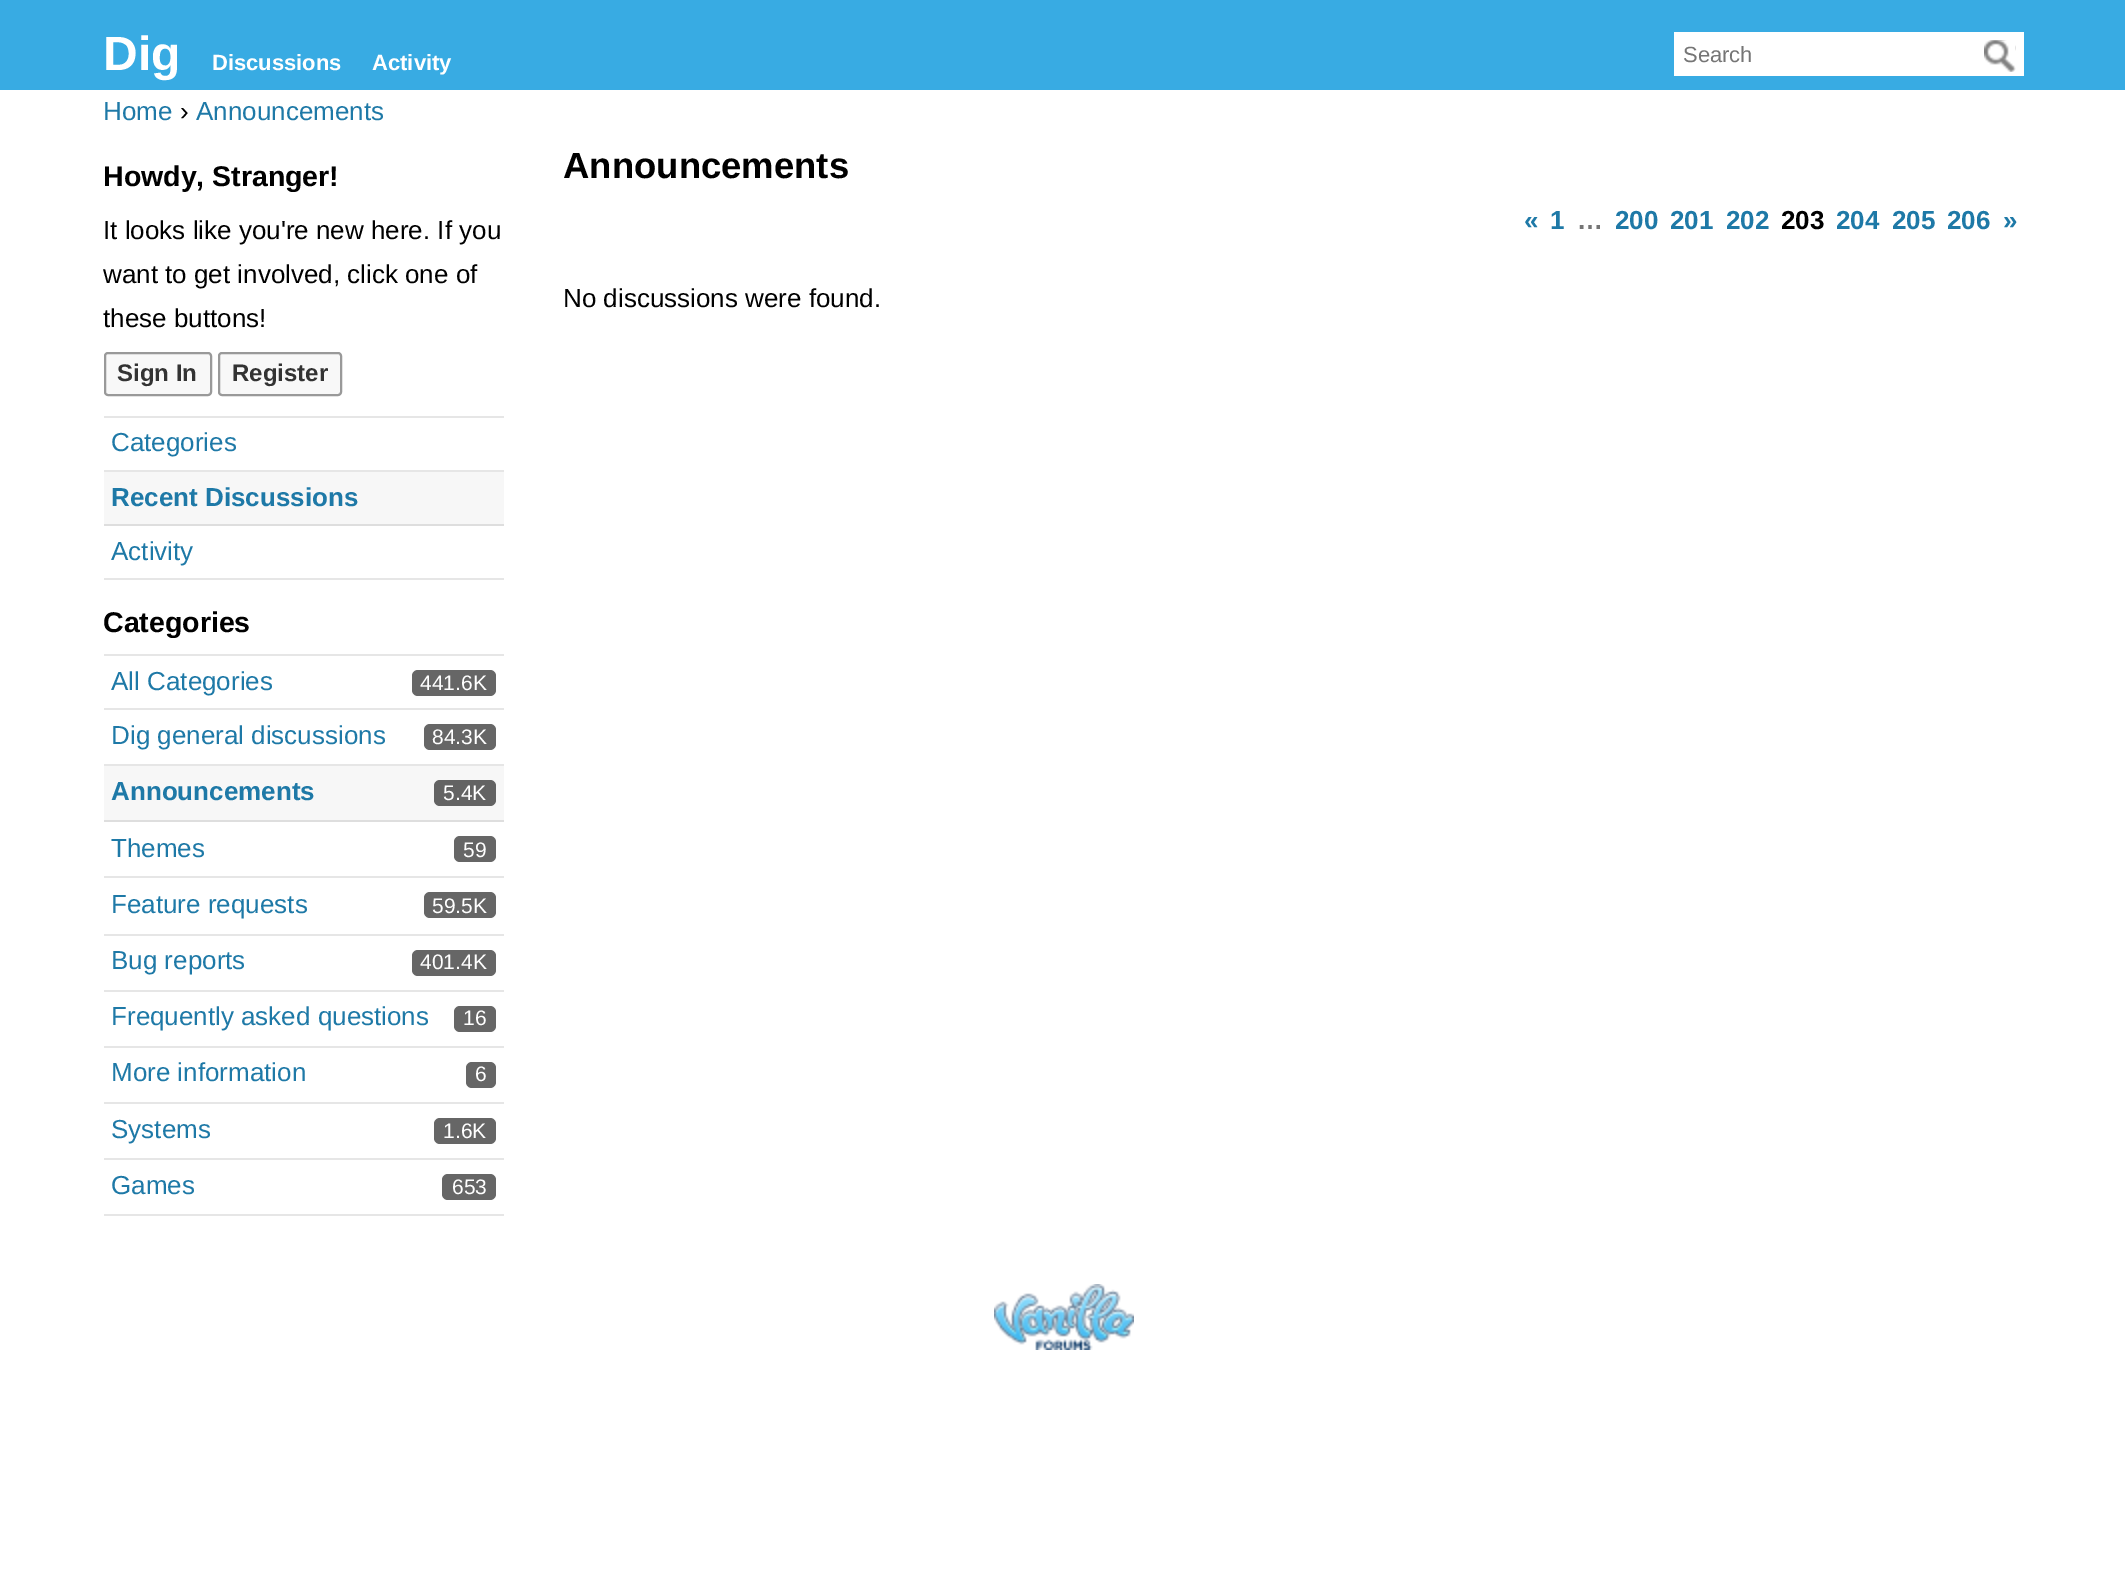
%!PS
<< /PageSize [2125 1595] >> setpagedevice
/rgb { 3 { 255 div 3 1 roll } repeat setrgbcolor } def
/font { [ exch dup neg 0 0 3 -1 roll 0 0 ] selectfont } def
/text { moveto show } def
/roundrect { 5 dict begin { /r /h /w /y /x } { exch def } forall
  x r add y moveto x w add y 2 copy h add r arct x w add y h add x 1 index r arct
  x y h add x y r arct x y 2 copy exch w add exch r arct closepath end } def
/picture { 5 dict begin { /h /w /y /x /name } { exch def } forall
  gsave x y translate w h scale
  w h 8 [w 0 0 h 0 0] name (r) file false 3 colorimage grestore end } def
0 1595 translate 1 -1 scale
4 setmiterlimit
255 255 255 rgb
0 0 2125 1595 rectfill
56 171 227 rgb
0 0 2125 90 rectfill
255 255 255 rgb
1674 32 350 44 rectfill
(img_01.rgb) 1984 40 32 32 picture
248 248 248 rgb
105 353 106 42 3 roundrect gsave fill grestore
153 153 153 rgb
2 setlinewidth
stroke
248 248 248 rgb
219 353 122 42 3 roundrect gsave fill grestore
153 153 153 rgb
stroke
230 230 230 rgb
104 416 400 2 rectfill
104 470 400 2 rectfill
247 247 247 rgb
104 472 400 52 rectfill
222 222 222 rgb
104 524 400 2 rectfill
230 230 230 rgb
104 578 400 2 rectfill
104 654 400 2 rectfill
104 708 400 2 rectfill
102 102 102 rgb
412 670 84 26 6 roundrect fill
230 230 230 rgb
104 764 400 2 rectfill
102 102 102 rgb
424 724 72 26 6 roundrect fill
247 247 247 rgb
104 766 400 54 rectfill
222 222 222 rgb
104 820 400 2 rectfill
99 99 99 rgb
434 780 62 26 6 roundrect fill
230 230 230 rgb
104 876 400 2 rectfill
102 102 102 rgb
454 836 42 26 6 roundrect fill
230 230 230 rgb
104 934 400 2 rectfill
102 102 102 rgb
424 892 72 26 6 roundrect fill
230 230 230 rgb
104 990 400 2 rectfill
102 102 102 rgb
412 950 84 26 6 roundrect fill
230 230 230 rgb
104 1046 400 2 rectfill
102 102 102 rgb
454 1006 42 26 6 roundrect fill
230 230 230 rgb
104 1102 400 2 rectfill
102 102 102 rgb
466 1062 30 26 6 roundrect fill
230 230 230 rgb
104 1158 400 2 rectfill
102 102 102 rgb
434 1118 62 26 6 roundrect fill
230 230 230 rgb
104 1214 400 2 rectfill
102 102 102 rgb
442 1174 54 26 6 roundrect fill
(img_02.rgb) 994 1284 140 66 picture
/LiberationSans-Bold 48 font
255 255 255 rgb
(Dig) 103 70 text
/LiberationSans-Bold 22 font
(Discussions) 212 70 text
(Activity) 372 70 text
/LiberationSans-Regular 22 font
117 117 117 rgb
(Search) 1683 62 text
/LiberationSans-Regular 26 font
30 121 167 rgb
(Home) 103 120 text
0 0 0 rgb
(›) 180 120 text
30 121 167 rgb
(Announcements) 196 120 text
/LiberationSans-Bold 28.5 font
0 0 0 rgb
(Howdy, Stranger!) 103 186 text
/LiberationSans-Regular 26 font
(It looks like you're new here. If you) 103 239 text
(want to get involved, click one of) 103 283 text
(these buttons!) 103 327 text
/LiberationSans-Bold 24 font
51 51 51 rgb
(Sign In) 117 381 text
(Register) 232 381 text
/LiberationSans-Regular 26 font
30 121 167 rgb
(Categories) 111 451 text
/LiberationSans-Bold 26 font
(Recent Discussions) 111 506 text
/LiberationSans-Regular 26 font
(Activity) 111 560 text
/LiberationSans-Bold 28.5 font
0 0 0 rgb
(Categories) 103 632 text
/LiberationSans-Regular 26 font
30 121 167 rgb
(All Categories) 111 690 text
/LiberationSans-Regular 21 font
255 255 255 rgb
(441.6K) 420 690 text
/LiberationSans-Regular 26 font
30 121 167 rgb
(Dig general discussions) 111 744 text
/LiberationSans-Regular 21 font
255 255 255 rgb
(84.3K) 432 744 text
/LiberationSans-Bold 26 font
30 121 167 rgb
(Announcements) 111 800 text
/LiberationSans-Regular 21 font
255 255 255 rgb
(5.4K) 443 800 text
/LiberationSans-Regular 26 font
30 121 167 rgb
(Themes) 111 857 text
/LiberationSans-Regular 21 font
255 255 255 rgb
(59) 463 857 text
/LiberationSans-Regular 26 font
30 121 167 rgb
(Feature requests) 111 913 text
/LiberationSans-Regular 21 font
255 255 255 rgb
(59.5K) 432 913 text
/LiberationSans-Regular 26 font
30 121 167 rgb
(Bug reports) 111 969 text
/LiberationSans-Regular 21 font
255 255 255 rgb
(401.4K) 420 969 text
/LiberationSans-Regular 26 font
30 121 167 rgb
(Frequently asked questions) 111 1025 text
/LiberationSans-Regular 21 font
255 255 255 rgb
(16) 463 1025 text
/LiberationSans-Regular 26 font
30 121 167 rgb
(More information) 111 1081 text
/LiberationSans-Regular 21 font
255 255 255 rgb
(6) 475 1081 text
/LiberationSans-Regular 26 font
30 121 167 rgb
(Systems) 111 1138 text
/LiberationSans-Regular 21 font
255 255 255 rgb
(1.6K) 443 1138 text
/LiberationSans-Regular 26 font
30 121 167 rgb
(Games) 111 1194 text
/LiberationSans-Regular 21 font
255 255 255 rgb
(653) 452 1194 text
/LiberationSans-Bold 36.5 font
0 0 0 rgb
(Announcements) 563 178 text
/LiberationSans-Bold 26 font
30 121 167 rgb
(«) 1524 229 text
(1) 1550 229 text
117 117 117 rgb
(…) 1577 229 text
30 121 167 rgb
(200) 1615 229 text
(201) 1670 229 text
(202) 1726 229 text
0 0 0 rgb
(203) 1781 229 text
30 121 167 rgb
(204) 1836 229 text
(205) 1892 229 text
(206) 1947 229 text
(») 2003 229 text
/LiberationSans-Regular 26 font
0 0 0 rgb
(No discussions were found.) 563 307 text
showpage
